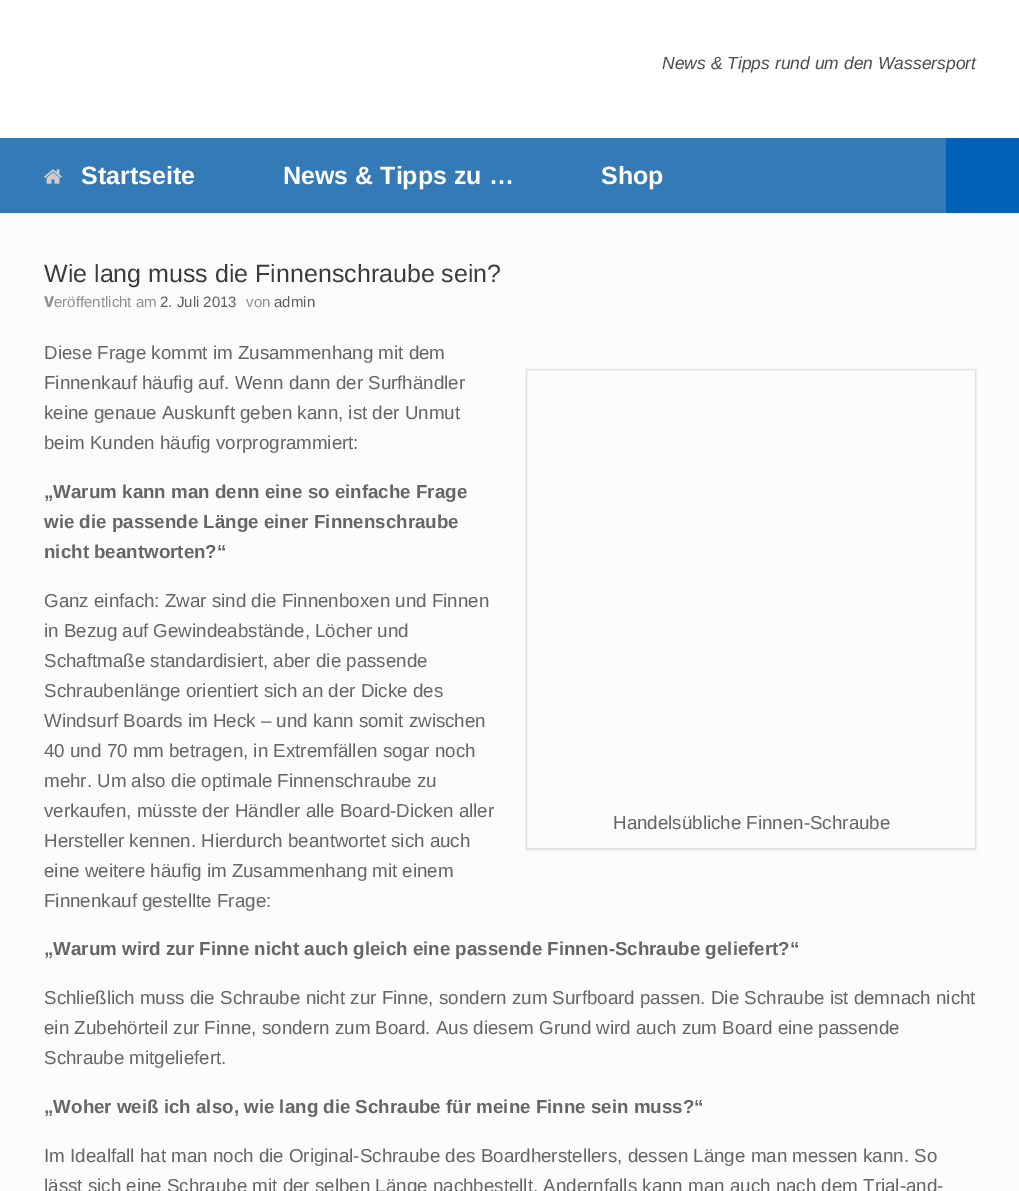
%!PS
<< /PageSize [1019 1191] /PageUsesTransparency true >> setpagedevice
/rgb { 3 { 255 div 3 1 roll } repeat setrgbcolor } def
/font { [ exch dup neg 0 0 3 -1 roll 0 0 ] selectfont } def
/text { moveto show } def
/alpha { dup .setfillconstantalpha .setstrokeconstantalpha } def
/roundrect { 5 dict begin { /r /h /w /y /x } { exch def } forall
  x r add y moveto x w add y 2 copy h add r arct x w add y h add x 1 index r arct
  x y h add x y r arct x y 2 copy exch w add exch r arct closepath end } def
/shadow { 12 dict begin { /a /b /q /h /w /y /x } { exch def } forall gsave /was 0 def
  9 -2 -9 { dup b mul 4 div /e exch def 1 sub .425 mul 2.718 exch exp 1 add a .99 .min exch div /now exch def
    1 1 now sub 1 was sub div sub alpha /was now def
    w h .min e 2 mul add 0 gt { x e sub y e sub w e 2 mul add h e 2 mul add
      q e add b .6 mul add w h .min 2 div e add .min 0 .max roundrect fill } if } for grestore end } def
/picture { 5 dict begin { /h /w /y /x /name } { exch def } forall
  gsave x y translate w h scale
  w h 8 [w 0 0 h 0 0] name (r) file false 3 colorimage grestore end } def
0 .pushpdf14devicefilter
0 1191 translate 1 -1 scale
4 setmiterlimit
255 255 255 rgb
0 0 1019 1191 rectfill
51 122 183 rgb
0 138 946 75 rectfill
(img_01.rgb) 44 169 18 15 picture
0 97 183 rgb
946 138 73 75 rectfill
252 252 252 rgb
0 213 1019 978 rectfill
gsave
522 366 moveto 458 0 rlineto 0 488 rlineto -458 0 rlineto closepath 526 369 moveto 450 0 rlineto 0 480 rlineto -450 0 rlineto closepath eoclip newpath
0 0 0 rgb
526 370 450 480 0 1 0.09 shadow
grestore
224 224 224 rgb
526.5 369.5 449 479 rectstroke
/LiberationSans-Italic 17.5 font
75 75 75 rgb
(News & Tipps rund um den Wassersport) 662 69 text
/LiberationSans-Bold 25 font
255 255 255 rgb
(Startseite) 81 184 text
(News & Tipps zu …) 283 184 text
(Shop) 601 184 text
/LiberationSans-Regular 25 font
59 59 59 rgb
(Wie lang muss die Finnenschraube sein?) 44 282 text
/NotoSans-ExtraBold 15 font
143 143 143 rgb
(V) 44 307 text
/LiberationSans-Regular 15 font
(eröffentlicht am) 54 307 text
94 94 94 rgb
(2. Juli 2013) 160 307 text
143 143 143 rgb
(von) 246 307 text
94 94 94 rgb
(admin) 274 307 text
/LiberationSans-Regular 18.75 font
102 102 102 rgb
(Diese Frage kommt im Zusammenhang mit dem) 44 359 text
(Finnenkauf häufig auf. Wenn dann der Surfhändler) 44 389 text
(keine genaue Auskunft geben kann, ist der Unmut) 44 419 text
(beim Kunden häufig vorprogrammiert:) 44 449 text
/LiberationSans-Bold 18.75 font
(„Warum kann man denn eine so einfache Frage) 44 498 text
(wie die passende Länge einer Finnenschraube) 44 528 text
(nicht beantworten?“) 44 558 text
/LiberationSans-Regular 18.75 font
(Ganz einfach: Zwar sind die Finnenboxen und Finnen) 44 607 text
(in Bezug auf Gewindeabstände, Löcher und) 44 637 text
(Schaftmaße standardisiert, aber die passende) 44 667 text
(Schraubenlänge orientiert sich an der Dicke des) 44 697 text
(Windsurf Boards im Heck – und kann somit zwischen) 44 727 text
(40 und 70 mm betragen, in Extremfällen sogar noch) 44 757 text
(mehr. Um also die optimale Finnenschraube zu) 44 787 text
(verkaufen, müsste der Händler alle Board-Dicken aller) 44 817 text
(Hersteller kennen. Hierdurch beantwortet sich auch) 44 847 text
(eine weitere häufig im Zusammenhang mit einem) 44 877 text
(Finnenkauf gestellte Frage:) 44 907 text
(Handelsübliche Finnen-Schraube) 613 829 text
/LiberationSans-Bold 18.75 font
(„Warum wird zur Finne nicht auch gleich eine passende Finnen-Schraube geliefert?“) 44 955 text
/LiberationSans-Regular 18.75 font
(Schließlich muss die Schraube nicht zur Finne, sondern zum Surfboard passen. Die Schraube ist demnach nicht) 44 1004 text
(ein Zubehörteil zur Finne, sondern zum Board. Aus diesem Grund wird auch zum Board eine passende) 44 1034 text
(Schraube mitgeliefert.) 44 1064 text
/LiberationSans-Bold 18.75 font
(„Woher weiß ich also, wie lang die Schraube für meine Finne sein muss?“) 44 1113 text
/LiberationSans-Regular 18.75 font
(Im Idealfall hat man noch die Original-Schraube des Boardherstellers, dessen Länge man messen kann. So) 44 1162 text
(lässt sich eine Schraube mit der selben Länge nachbestellt. Andernfalls kann man auch nach dem Trial-and-) 44 1192 text
.poppdf14devicefilter showpage
